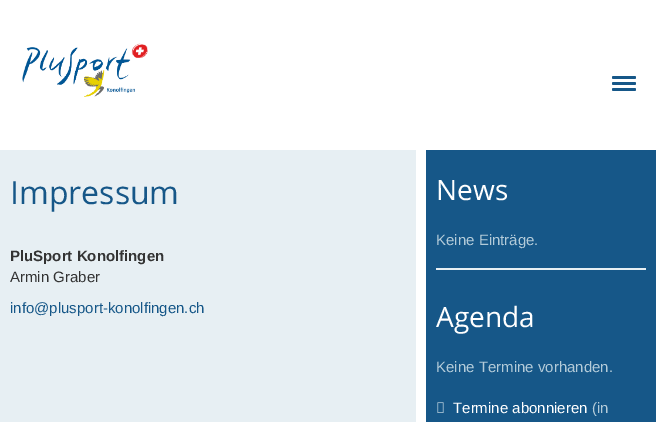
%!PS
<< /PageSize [656 422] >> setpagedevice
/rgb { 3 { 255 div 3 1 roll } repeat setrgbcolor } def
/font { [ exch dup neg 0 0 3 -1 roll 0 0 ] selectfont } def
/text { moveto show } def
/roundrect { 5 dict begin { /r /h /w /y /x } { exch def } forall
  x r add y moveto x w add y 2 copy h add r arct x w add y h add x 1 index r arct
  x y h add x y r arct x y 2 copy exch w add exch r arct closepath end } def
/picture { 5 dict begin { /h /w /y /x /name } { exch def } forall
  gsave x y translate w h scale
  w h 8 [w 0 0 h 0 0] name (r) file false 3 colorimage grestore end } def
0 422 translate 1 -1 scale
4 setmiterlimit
255 255 255 rgb
0 0 656 422 rectfill
(img_01.rgb) 22 43 126 54 picture
22 87 136 rgb
612 76 24 3 1.5 roundrect fill
612 82 24 3 1.5 roundrect fill
612 88 24 3 1.5 roundrect fill
231 239 243 rgb
0 150 416 272 rectfill
22 87 136 rgb
426 150 230 272 rectfill
231 239 243 rgb
436 268 210 2 rectfill
(img_02.rgb) 437 402 7 11 picture
/OpenSans-Regular 32 font
22 87 136 rgb
(Impressum) 10 204 text
/Arimo-Bold 15 font
51 51 51 rgb
(PluSport Konolfingen) 10 261 text
/Arimo-Regular 15 font
(Armin Graber) 10 282 text
22 87 136 rgb
(info@plusport-konolfingen.ch) 10 313 text
/OpenSans-Regular 28 font
255 255 255 rgb
(News) 436 200 text
/Arimo-Regular 15 font
179 203 217 rgb
(Keine Einträge.) 436 245 text
/OpenSans-Regular 28 font
255 255 255 rgb
(Agenda) 436 327 text
/Arimo-Regular 15 font
179 203 217 rgb
(Keine Termine vorhanden.) 436 372 text
255 255 255 rgb
(Termine abonnieren) 453 413 text
179 203 217 rgb
(\(in) 592 413 text
showpage
